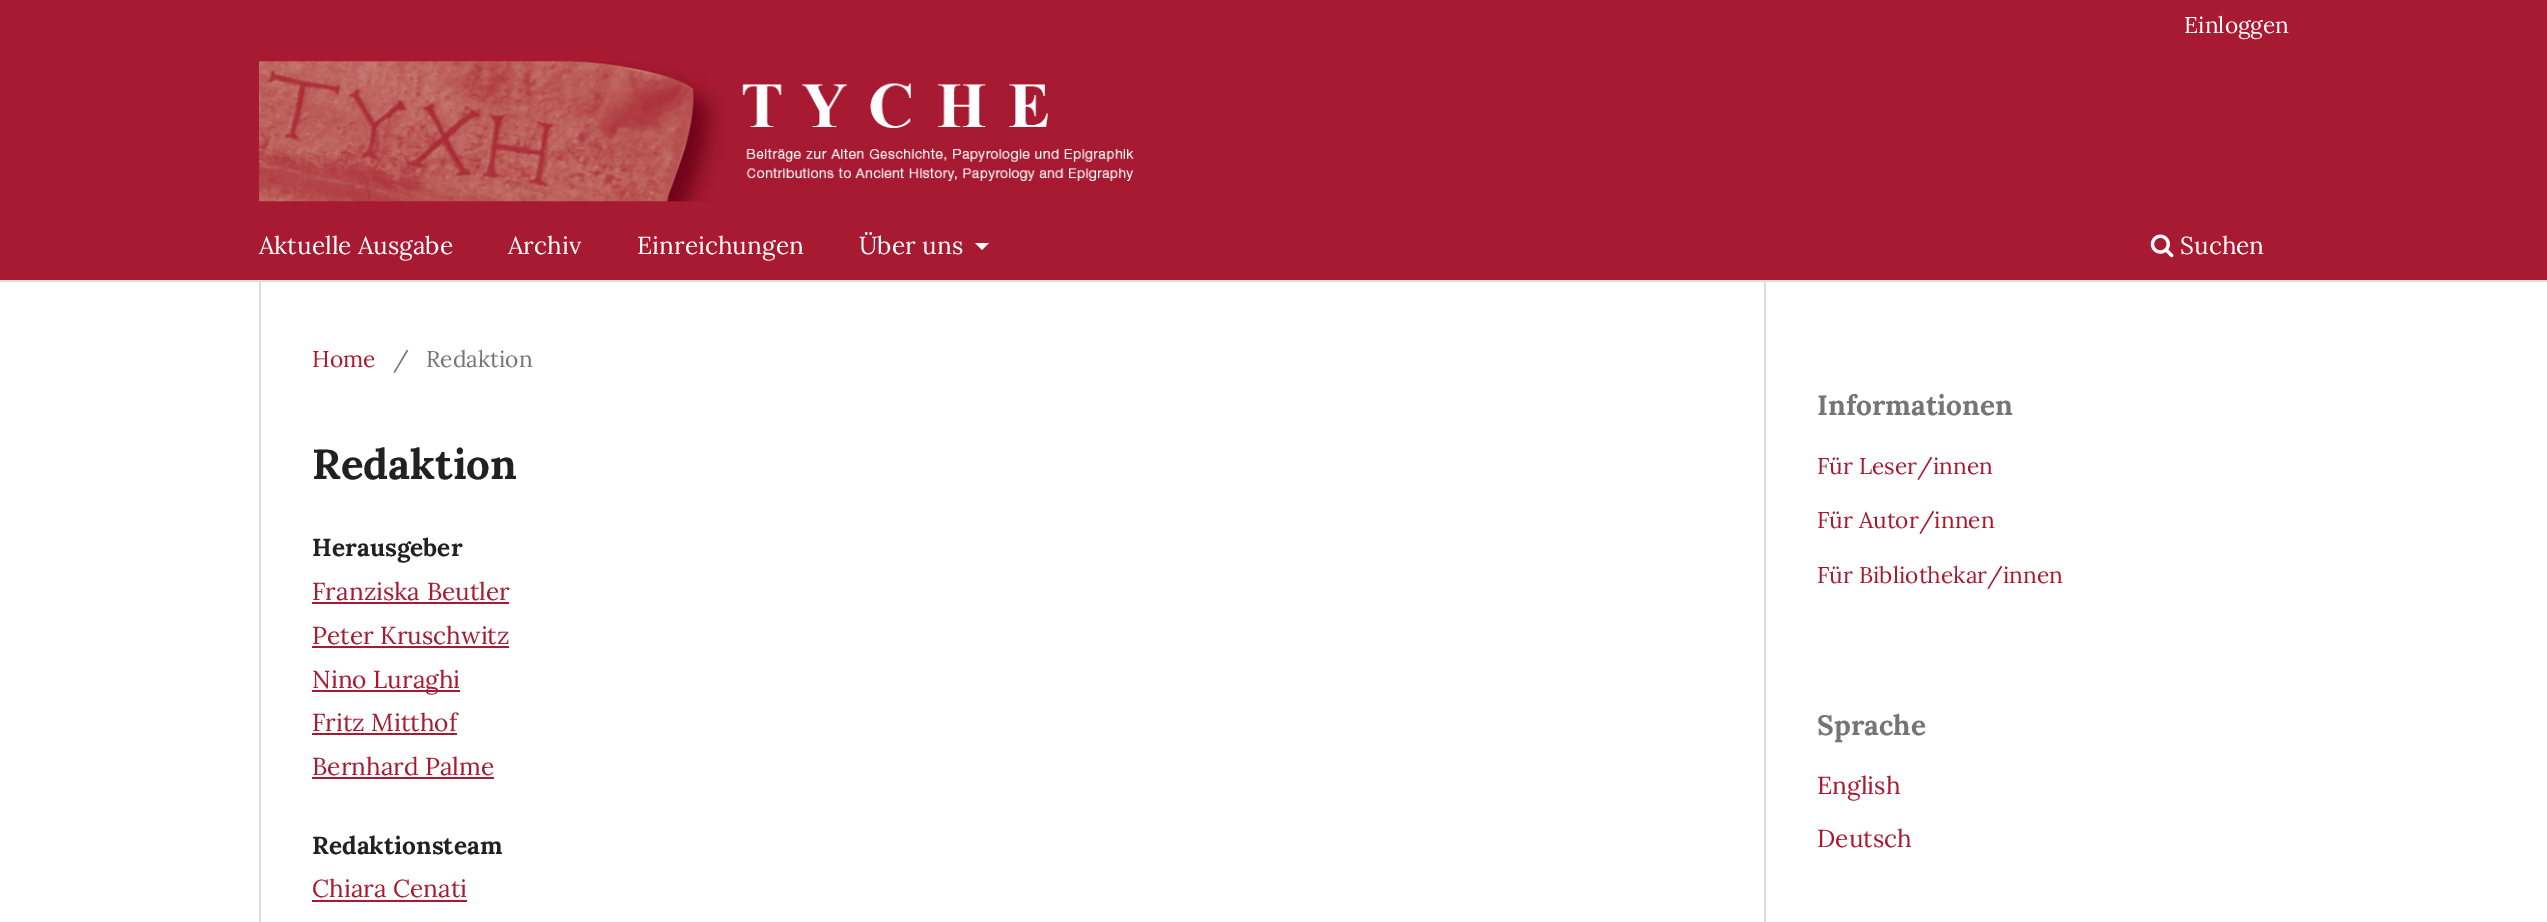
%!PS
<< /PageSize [2547 922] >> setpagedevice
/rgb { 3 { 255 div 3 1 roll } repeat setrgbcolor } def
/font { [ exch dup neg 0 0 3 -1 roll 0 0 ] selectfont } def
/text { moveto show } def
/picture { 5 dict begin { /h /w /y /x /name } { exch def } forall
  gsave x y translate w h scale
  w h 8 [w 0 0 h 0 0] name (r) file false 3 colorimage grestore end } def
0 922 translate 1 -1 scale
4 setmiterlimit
255 255 255 rgb
0 0 2547 922 rectfill
168 26 50 rgb
0 0 2547 280 rectfill
221 221 221 rgb
0 280 2547 2 rectfill
255 255 255 rgb
975 243 moveto 14 0 rlineto -7 7 rlineto closepath fill
(img_01.rgb) 2150 234 24 24 picture
(img_02.rgb) 259 61 881 141 picture
221 221 221 rgb
259 282 2 640 rectfill
168 26 50 rgb
312 602 197 2 rectfill
312 646 197 2 rectfill
312 690 148 2 rectfill
312 733 145 2 rectfill
312 777 182 2 rectfill
312 900 155 2 rectfill
221 221 221 rgb
1764 282 2 640 rectfill
/Lora-Regular 22.75 font
255 255 255 rgb
(Einloggen) 2184 33 text
/Lora-Regular 24.5 font
(Aktuelle Ausgabe) 259 254 text
(Archiv) 508 254 text
(Einreichungen) 637 254 text
(Über uns) 859 254 text
(Suchen) 2180 254 text
/Lora-Regular 22.75 font
168 26 50 rgb
(Home) 312 367 text
117 117 117 rgb
(/) 393 367 text
(Redaktion) 426 367 text
/Lora-Bold 42 font
33 33 33 rgb
(Redaktion) 312 479 text
/Lora-Bold 24.5 font
(Herausgeber) 312 556 text
/Lora-Regular 24.5 font
168 26 50 rgb
(Franziska Beutler) 312 600 text
(Peter Kruschwitz) 312 644 text
(Nino Luraghi) 312 688 text
(Fritz Mitthof) 312 731 text
(Bernhard Palme) 312 775 text
/Lora-Bold 24.5 font
33 33 33 rgb
(Redaktionsteam) 312 854 text
/Lora-Regular 24.5 font
168 26 50 rgb
(Chiara Cenati) 312 897 text
/Lora-Bold 28 font
117 117 117 rgb
(Informationen) 1817 415 text
/Lora-Regular 22.75 font
168 26 50 rgb
(Für Leser/innen) 1817 474 text
(Für Autor/innen) 1817 528 text
(Für Bibliothekar/innen) 1817 583 text
/Lora-Bold 28 font
117 117 117 rgb
(Sprache) 1817 735 text
/Lora-Regular 24.5 font
168 26 50 rgb
(English) 1817 794 text
(Deutsch) 1817 847 text
showpage
